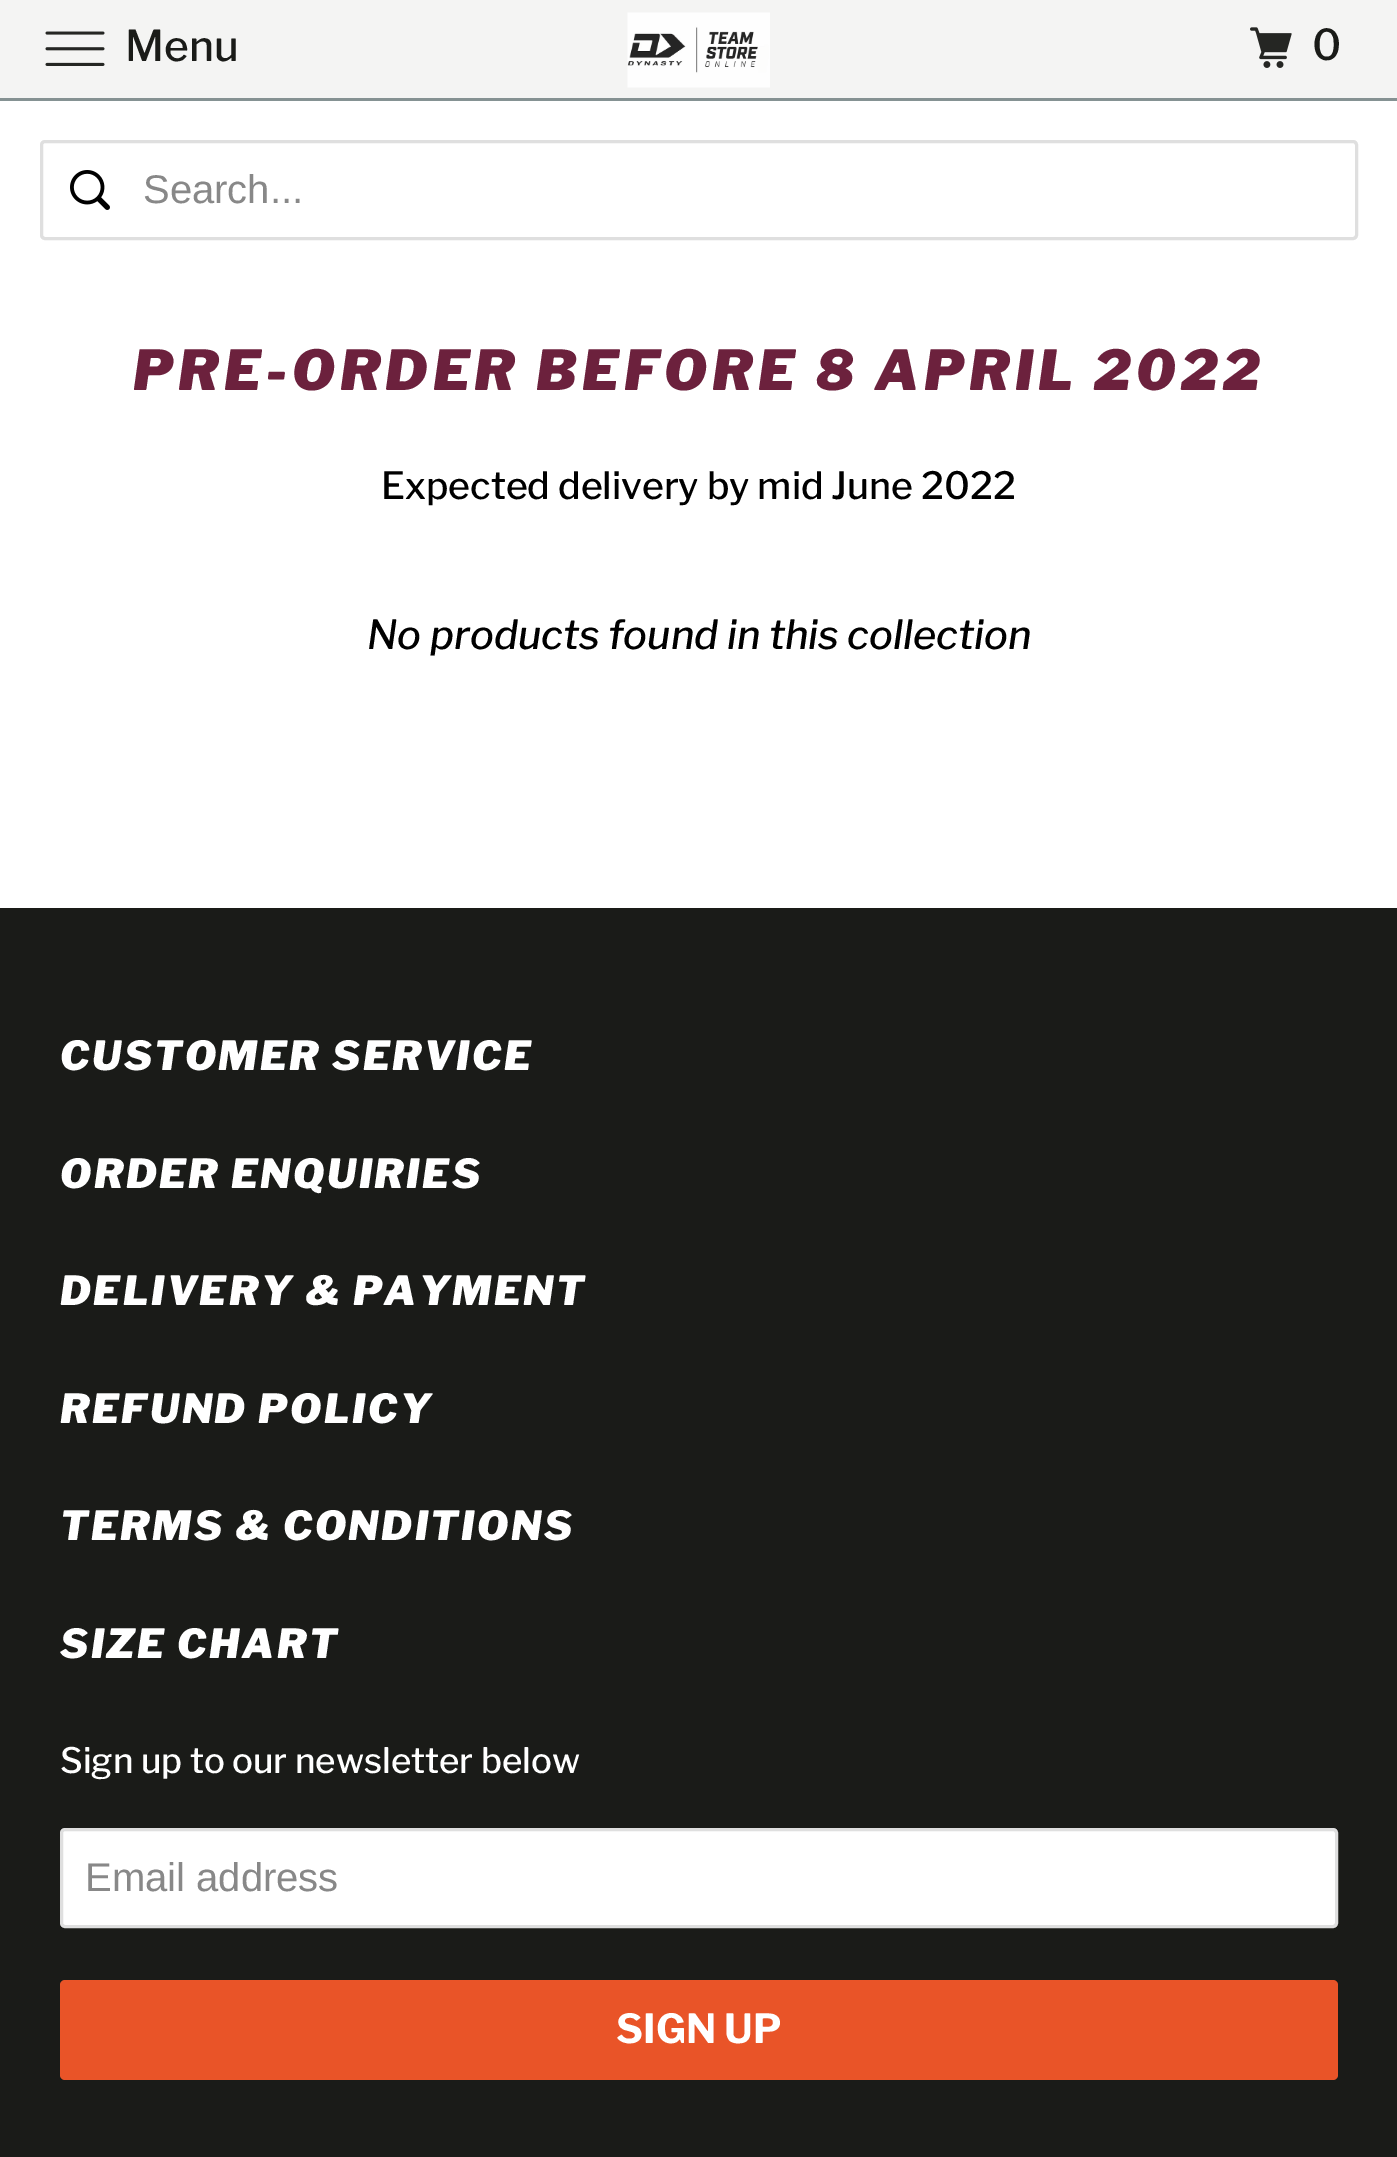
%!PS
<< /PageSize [1397 2157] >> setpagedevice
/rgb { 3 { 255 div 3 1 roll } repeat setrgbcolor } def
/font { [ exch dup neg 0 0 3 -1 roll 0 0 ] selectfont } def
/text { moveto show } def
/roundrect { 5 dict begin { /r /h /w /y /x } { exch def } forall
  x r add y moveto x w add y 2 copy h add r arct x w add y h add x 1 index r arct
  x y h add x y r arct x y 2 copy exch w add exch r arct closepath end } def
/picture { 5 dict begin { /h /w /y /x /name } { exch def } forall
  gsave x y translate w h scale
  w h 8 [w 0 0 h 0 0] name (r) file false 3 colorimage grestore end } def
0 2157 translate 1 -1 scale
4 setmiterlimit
255 255 255 rgb
0 0 1397 2157 rectfill
244 244 243 rgb
0 0 1397 98 rectfill
133 145 146 rgb
0 98 1397 2 rectfill
(img_01.rgb) 45 31 60 35 picture
(img_02.rgb) 627 12 143 76 picture
(img_03.rgb) 1250 27 42 41 picture
133 146 147 rgb
0 100 1397 1 rectfill
223 223 223 rgb
3 setlinewidth
41.5 141.5 1315 97 3.5 roundrect stroke
(img_04.rgb) 70 170 40 40 picture
26 27 24 rgb
0 908 1397 1249 rectfill
255 255 255 rgb
61.5 1829.5 1275 97 3.5 roundrect gsave fill grestore
223 223 223 rgb
stroke
233 84 40 rgb
60 1980 1278 100 5 roundrect fill
/LibreFranklin-Medium 42.5 font
26 27 24 rgb
(Menu) 125 61 text
(0) 1312 60 text
/LiberationSans-Regular 40 font
136 136 136 rgb
(Search...) 143 203 text
/LibreFranklin-BlackItalic 55 font
108 33 61 rgb
133 390 moveto 5 0 (PRE-ORDER BEFORE 8 APRIL 2022) ashow
/LibreFranklin-Medium 37.5 font
0 0 0 rgb
(Expected delivery by mid June 2022) 381 499 text
/LibreFranklin-MediumItalic 40 font
(No products found in this collection) 367 649 text
/LibreFranklin-BlackItalic 40 font
255 255 255 rgb
60 1070 moveto 2.5 0 (CUSTOMER SERVICE) ashow
60 1188 moveto 2.5 0 (ORDER ENQUIRIES) ashow
60 1305 moveto 2.5 0 (DELIVERY & PAYMENT) ashow
60 1423 moveto 2.5 0 (REFUND POLICY) ashow
60 1540 moveto 2.5 0 (TERMS & CONDITIONS) ashow
60 1658 moveto 2.5 0 (SIZE CHART) ashow
/LibreFranklin-Medium 35 font
(Sign up to our newsletter below) 60 1773 text
/LiberationSans-Regular 40 font
136 136 136 rgb
(Email address) 85 1891 text
/LibreFranklin-Bold 40 font
255 255 255 rgb
(SIGN UP) 616 2043 text
showpage
